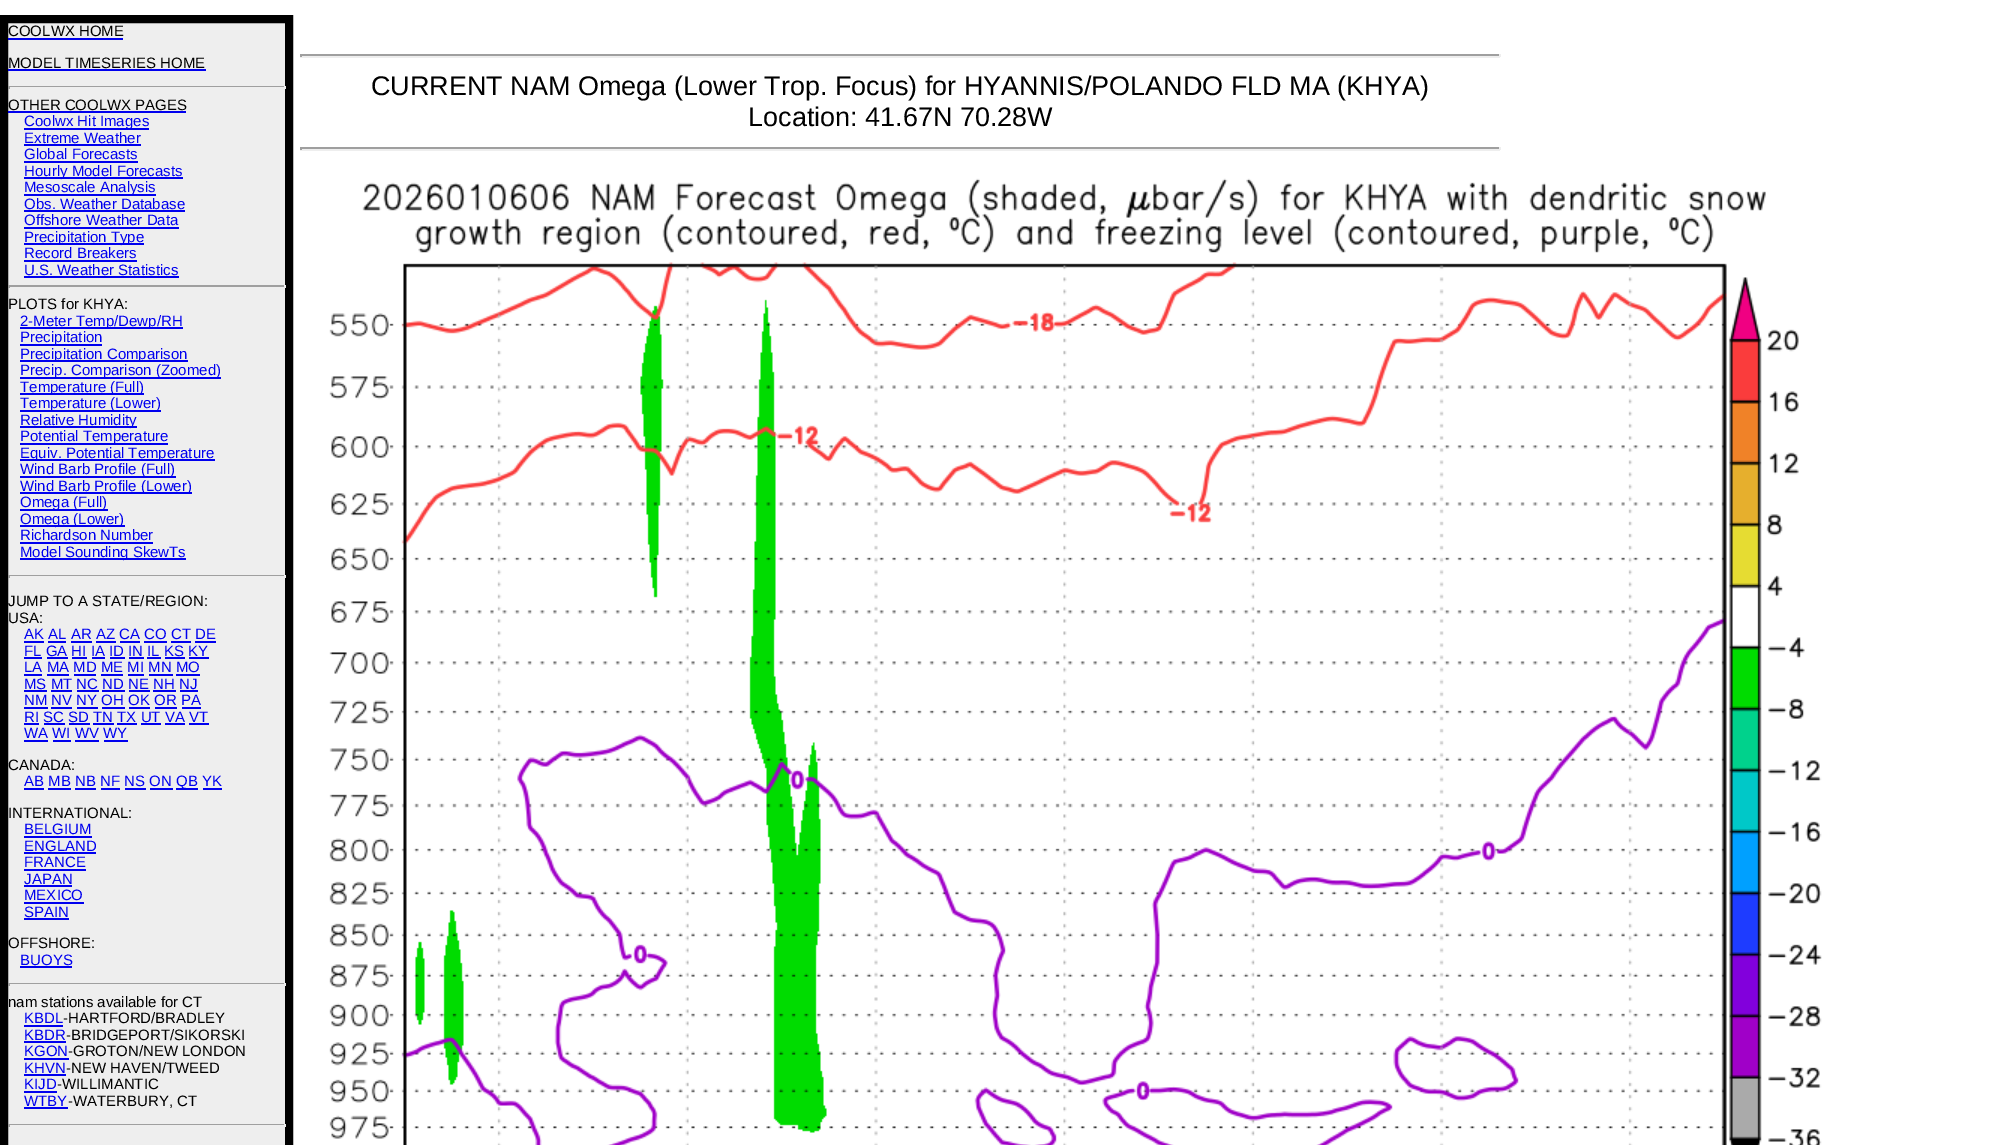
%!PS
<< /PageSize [2010 1145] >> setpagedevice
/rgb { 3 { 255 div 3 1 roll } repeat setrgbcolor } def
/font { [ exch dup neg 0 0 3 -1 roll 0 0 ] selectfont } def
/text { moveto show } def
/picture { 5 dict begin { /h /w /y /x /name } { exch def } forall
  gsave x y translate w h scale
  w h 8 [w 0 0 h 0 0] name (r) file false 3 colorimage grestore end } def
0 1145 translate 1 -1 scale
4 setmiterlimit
255 255 255 rgb
0 0 2010 1145 rectfill
238 238 238 rgb
4 19 moveto 285 0 rlineto 0 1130 rlineto -285 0 rlineto closepath gsave fill grestore
0 0 0 rgb
8 setlinewidth
stroke
0 0 238 rgb
8 38 115 2 rectfill
8 69 198 2 rectfill
159 159 159 rgb
8 86 277 1 rectfill
238 238 238 rgb
284 86 2 3 rectfill
159 159 159 rgb
8 86 2 3 rectfill
0 0 238 rgb
8 111 178 2 rectfill
24 128 125 2 rectfill
24 144 117 2 rectfill
24 161 114 2 rectfill
24 177 159 2 rectfill
24 194 132 2 rectfill
24 210 161 2 rectfill
24 227 155 2 rectfill
24 243 120 2 rectfill
24 260 113 2 rectfill
24 276 155 2 rectfill
159 159 159 rgb
8 285 277 2 rectfill
238 238 238 rgb
284 285 2 3 rectfill
159 159 159 rgb
8 285 2 3 rectfill
0 0 238 rgb
20 327 163 2 rectfill
20 344 82 2 rectfill
20 360 168 2 rectfill
20 377 201 2 rectfill
20 393 124 2 rectfill
20 410 141 2 rectfill
20 426 117 2 rectfill
20 443 148 2 rectfill
20 459 195 2 rectfill
20 476 156 2 rectfill
20 492 172 2 rectfill
20 509 88 2 rectfill
20 525 105 2 rectfill
20 542 133 2 rectfill
20 558 166 2 rectfill
159 159 159 rgb
8 575 277 1 rectfill
238 238 238 rgb
284 575 2 3 rectfill
159 159 159 rgb
8 575 2 3 rectfill
0 0 238 rgb
24 641 20 2 rectfill
48 641 18 2 rectfill
71 641 21 2 rectfill
96 641 20 2 rectfill
120 641 20 2 rectfill
144 641 23 2 rectfill
171 641 20 2 rectfill
195 641 21 2 rectfill
24 657 18 2 rectfill
47 657 21 2 rectfill
72 657 15 2 rectfill
92 657 13 2 rectfill
110 657 15 2 rectfill
129 657 15 2 rectfill
147 657 14 2 rectfill
165 657 20 2 rectfill
189 657 20 2 rectfill
24 674 18 2 rectfill
47 674 22 2 rectfill
74 674 22 2 rectfill
101 674 22 2 rectfill
128 674 16 2 rectfill
149 674 24 2 rectfill
176 674 24 2 rectfill
24 690 23 2 rectfill
51 690 21 2 rectfill
77 690 22 2 rectfill
102 690 23 2 rectfill
129 690 21 2 rectfill
153 690 23 2 rectfill
180 690 18 2 rectfill
24 707 24 2 rectfill
51 707 21 2 rectfill
77 707 21 2 rectfill
102 707 23 2 rectfill
129 707 21 2 rectfill
155 707 22 2 rectfill
182 707 19 2 rectfill
24 723 15 2 rectfill
44 723 21 2 rectfill
69 723 21 2 rectfill
93 723 21 2 rectfill
117 723 20 2 rectfill
141 723 20 2 rectfill
165 723 20 2 rectfill
189 723 20 2 rectfill
24 740 24 2 rectfill
53 740 18 2 rectfill
75 740 24 2 rectfill
104 740 24 2 rectfill
24 788 20 2 rectfill
176 788 22 2 rectfill
48 788 23 2 rectfill
75 788 21 2 rectfill
101 788 19 2 rectfill
125 788 21 2 rectfill
150 788 23 2 rectfill
203 788 19 2 rectfill
24 836 68 2 rectfill
24 852 72 2 rectfill
24 869 62 2 rectfill
24 885 48 2 rectfill
24 902 60 2 rectfill
24 918 45 2 rectfill
20 966 52 2 rectfill
159 159 159 rgb
8 983 277 1 rectfill
238 238 238 rgb
284 983 2 3 rectfill
159 159 159 rgb
8 983 2 3 rectfill
0 0 238 rgb
24 1025 39 2 rectfill
24 1041 42 2 rectfill
24 1058 45 2 rectfill
24 1074 42 2 rectfill
24 1091 33 2 rectfill
24 1107 44 2 rectfill
159 159 159 rgb
8 1124 277 1 rectfill
238 238 238 rgb
284 1124 2 3 rectfill
159 159 159 rgb
8 1124 2 3 rectfill
300 54 1200 2 rectfill
238 238 238 rgb
1499 54 2 3 rectfill
300 56 1200 2 rectfill
159 159 159 rgb
300 54 2 3 rectfill
300 147 1200 2 rectfill
238 238 238 rgb
1499 147 2 3 rectfill
300 149 1200 2 rectfill
159 159 159 rgb
300 147 2 3 rectfill
(img_01.rgb) 329 178 1493 967 picture
/LiberationSans-Regular 15 font
0 0 0 rgb
(COOLWX HOME) 8 36 text
(MODEL TIMESERIES HOME) 8 68 text
(OTHER COOLWX PAGES) 8 110 text
0 0 238 rgb
(Coolwx Hit Images) 24 126 text
(Extreme Weather) 24 143 text
(Global Forecasts) 24 159 text
(Hourly Model Forecasts) 24 176 text
(Mesoscale Analysis) 24 192 text
(Obs. Weather Database) 24 209 text
(Offshore Weather Data) 24 225 text
(Precipitation Type) 24 242 text
(Record Breakers) 24 258 text
(U.S. Weather Statistics) 24 275 text
0 0 0 rgb
(PLOTS for KHYA:) 8 309 text
0 0 238 rgb
(2-Meter Temp/Dewp/RH) 20 326 text
(Precipitation) 20 342 text
(Precipitation Comparison) 20 359 text
(Precip. Comparison \(Zoomed\)) 20 375 text
(Temperature \(Full\)) 20 392 text
(Temperature \(Lower\)) 20 408 text
(Relative Humidity) 20 425 text
(Potential Temperature) 20 441 text
(Equiv. Potential Temperature) 20 458 text
(Wind Barb Profile \(Full\)) 20 474 text
(Wind Barb Profile \(Lower\)) 20 491 text
(Omega \(Full\)) 20 507 text
(Omega \(Lower\)) 20 524 text
(Richardson Number) 20 540 text
(Model Sounding SkewTs) 20 557 text
0 0 0 rgb
(JUMP TO A STATE/REGION:) 8 606 text
(USA:) 8 623 text
0 0 238 rgb
(AK AL AR AZ CA CO CT DE) 24 639 text
(FL GA HI IA ID IN IL KS KY) 24 656 text
(LA MA MD ME MI MN MO) 24 672 text
(MS MT NC ND NE NH NJ) 24 689 text
(NM NV NY OH OK OR PA) 24 705 text
(RI SC SD TN TX UT VA VT) 24 722 text
(WA WI WV WY) 24 738 text
0 0 0 rgb
(CANADA:) 8 770 text
0 0 238 rgb
(AB MB NB NF NS ON) 24 786 text
(QB YK) 176 786 text
0 0 0 rgb
(INTERNATIONAL:) 8 818 text
0 0 238 rgb
(BELGIUM) 24 834 text
(ENGLAND) 24 851 text
(FRANCE) 24 867 text
(JAPAN) 24 884 text
(MEXICO) 24 900 text
(SPAIN) 24 917 text
0 0 0 rgb
(OFFSHORE:) 8 948 text
0 0 238 rgb
(BUOYS) 20 965 text
0 0 0 rgb
(nam stations available for CT) 8 1007 text
0 0 238 rgb
(KBDL) 24 1023 text
0 0 0 rgb
(-HARTFORD/BRADLEY) 63 1023 text
0 0 238 rgb
(KBDR) 24 1040 text
0 0 0 rgb
(-BRIDGEPORT/SIKORSKI) 66 1040 text
0 0 238 rgb
(KGON) 24 1056 text
0 0 0 rgb
(-GROTON/NEW LONDON) 68 1056 text
0 0 238 rgb
(KHVN) 24 1073 text
0 0 0 rgb
(-NEW HAVEN/TWEED) 66 1073 text
0 0 238 rgb
(KIJD) 24 1089 text
0 0 0 rgb
(-WILLIMANTIC) 57 1089 text
0 0 238 rgb
(WTBY) 24 1106 text
0 0 0 rgb
(-WATERBURY, CT) 68 1106 text
/LiberationSans-Regular 27 font
(CURRENT NAM Omega \(Lower Trop. Focus\) for HYANNIS/POLANDO FLD MA \(KHYA\)) 371 95 text
(Location: 41.67N 70.28W) 748 126 text
showpage
